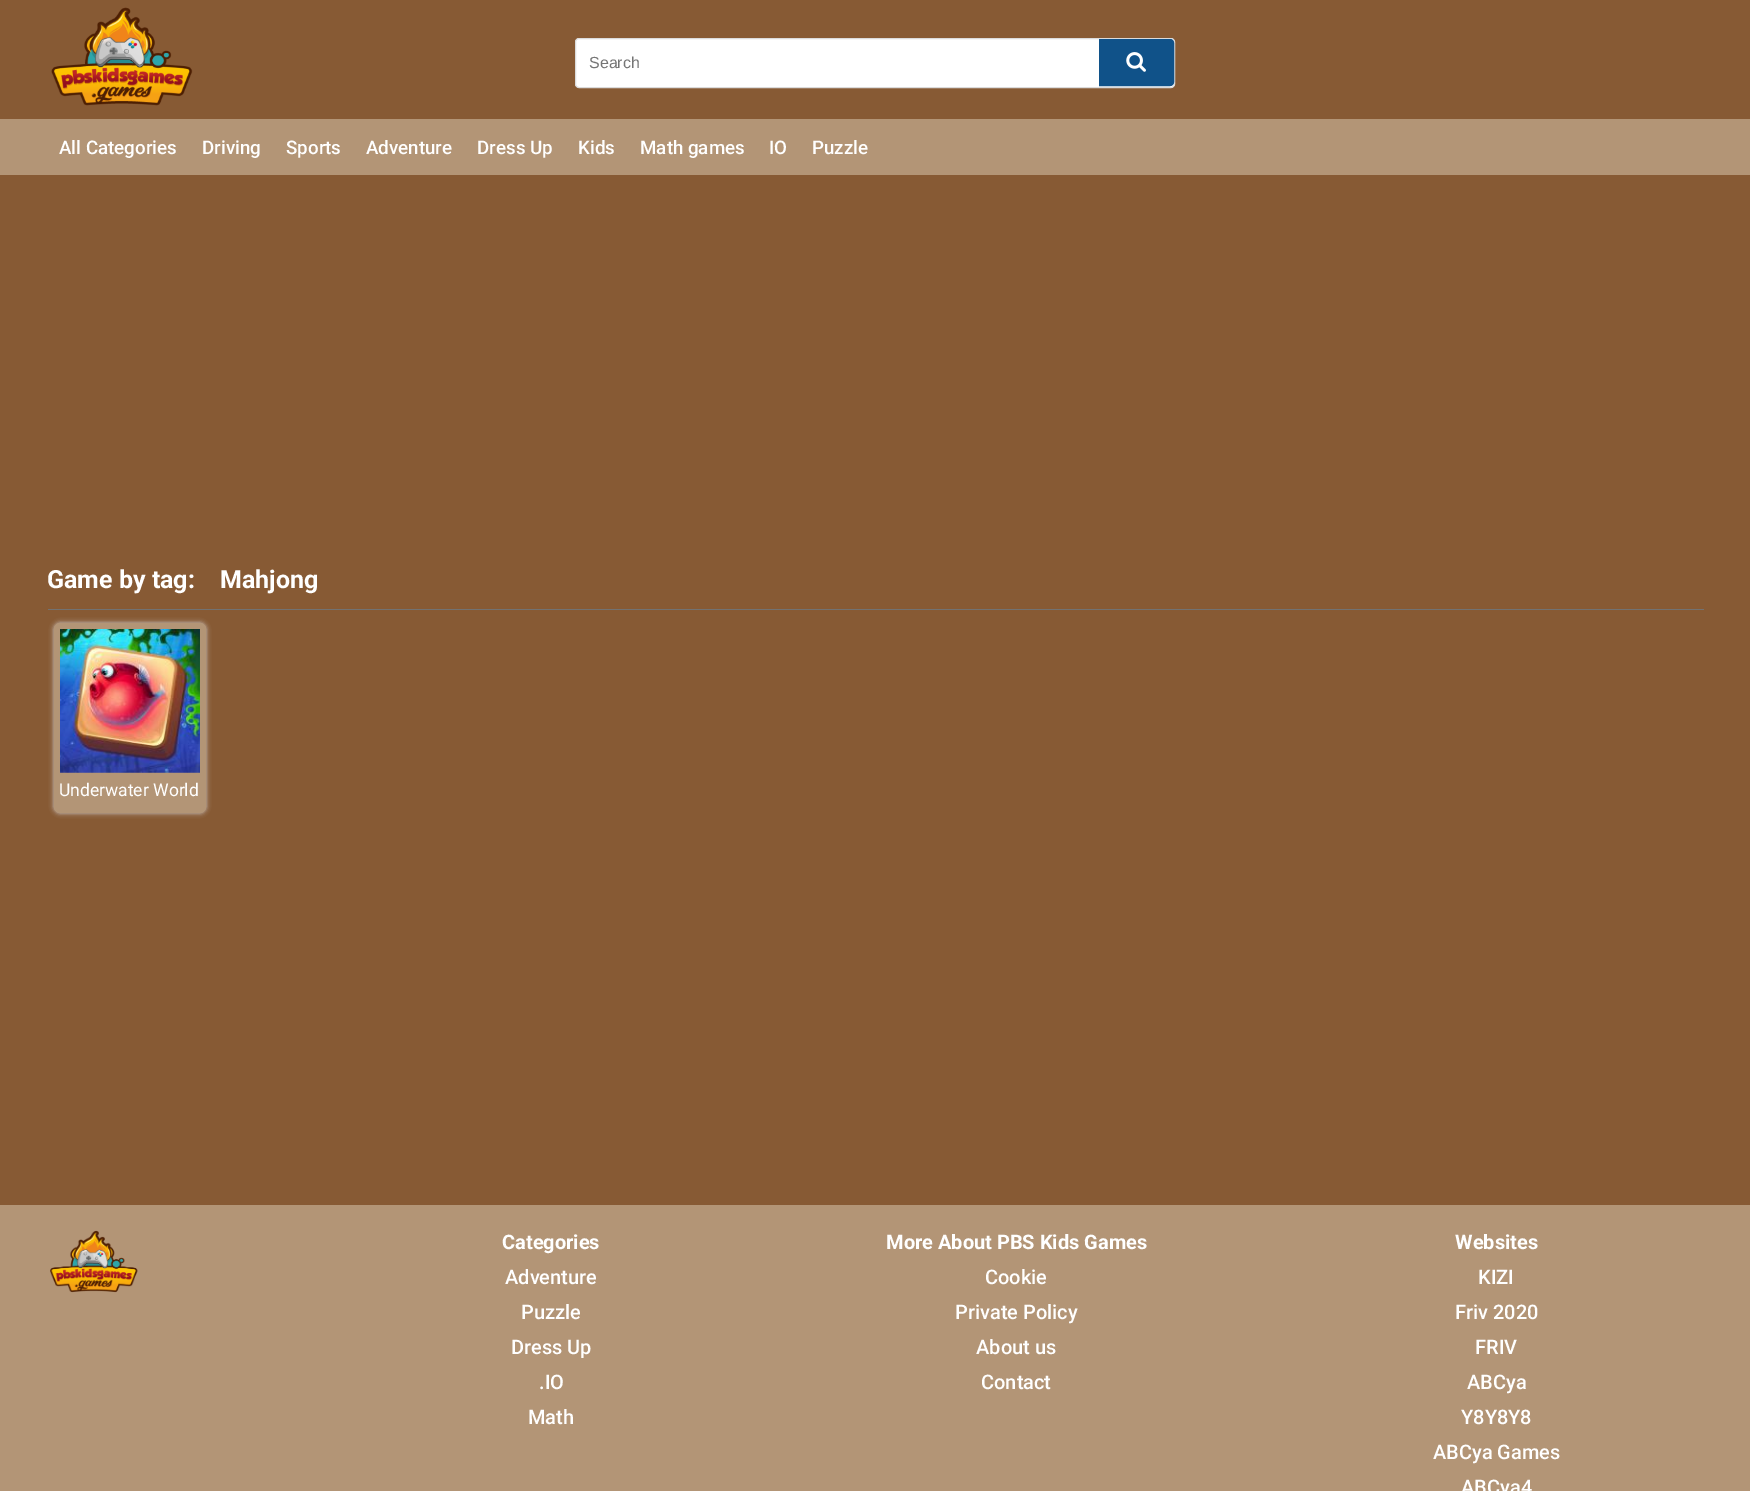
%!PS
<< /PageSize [1750 1491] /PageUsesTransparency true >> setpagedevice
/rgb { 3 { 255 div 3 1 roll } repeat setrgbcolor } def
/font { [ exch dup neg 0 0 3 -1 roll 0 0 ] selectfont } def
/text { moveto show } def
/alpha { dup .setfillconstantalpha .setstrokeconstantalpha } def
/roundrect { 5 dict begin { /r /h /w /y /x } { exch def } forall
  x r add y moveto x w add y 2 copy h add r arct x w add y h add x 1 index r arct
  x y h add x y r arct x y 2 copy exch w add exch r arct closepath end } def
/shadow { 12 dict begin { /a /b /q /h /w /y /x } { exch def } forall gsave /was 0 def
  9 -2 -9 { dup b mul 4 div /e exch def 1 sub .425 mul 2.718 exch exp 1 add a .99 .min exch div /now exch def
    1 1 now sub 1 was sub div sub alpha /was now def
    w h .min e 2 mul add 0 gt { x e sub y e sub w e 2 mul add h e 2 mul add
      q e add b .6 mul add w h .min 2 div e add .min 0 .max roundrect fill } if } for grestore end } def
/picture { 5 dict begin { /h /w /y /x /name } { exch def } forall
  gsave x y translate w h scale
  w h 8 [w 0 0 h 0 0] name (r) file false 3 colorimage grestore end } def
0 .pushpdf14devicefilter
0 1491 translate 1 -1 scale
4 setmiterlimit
135 90 52 rgb
0 0 1750 1491 rectfill
(img_01.rgb) 51 7 142 99 picture
255 255 255 rgb
575.5 38.5 599 49 3.5 roundrect gsave fill grestore
219 219 219 rgb
stroke
16 82 137 rgb
1099.5 39.5 moveto 70.5 0 rlineto 2 0 3.5 1.5 3.5 3.5 rcurveto 0 39 rlineto 0 2 -1.5 3.5 -3.5 3.5 rcurveto -70.5 0 rlineto closepath gsave fill grestore
stroke
(img_02.rgb) 1126 52 20 20 picture
179 149 118 rgb
0 119 1750 56 rectfill
114 114 114 rgb
48 609 1656 1 rectfill
204 204 204 rgb
54 623 152 190 6 2.5 1 shadow
179 149 118 rgb
54 623 152 190 6 roundrect fill
(img_03.rgb) 60 629 140 144 picture
0 1205 1750 286 rectfill
(img_04.rgb) 50 1230 88 63 picture
/LiberationSans-Regular 16 font
117 117 117 rgb
(Search) 589 68 text
/Roboto-Medium 18.75 font
255 255 255 rgb
(All Categories) 59 154 text
(Driving) 202 154 text
(Sports) 286 154 text
(Adventure) 366 154 text
(Dress Up) 477 154 text
(Kids) 578 154 text
(Math games) 640 154 text
(IO) 769 154 text
(Puzzle) 812 154 text
/Roboto-Bold 25 font
(Game by tag:) 47 588 text
(Mahjong) 220 588 text
/Roboto-Regular 17.5 font
(Underwater World) 59 796 text
/Roboto-Bold 20 font
(Categories) 502 1249 text
/Roboto-Medium 20 font
(Adventure) 505 1284 text
(Puzzle) 521 1319 text
(Dress Up) 511 1354 text
(.IO) 539 1389 text
(Math) 528 1424 text
/Roboto-Bold 20 font
(More About PBS Kids Games) 886 1249 text
/Roboto-Medium 20 font
(Cookie) 985 1284 text
(Private Policy) 955 1319 text
(About us) 976 1354 text
(Contact) 981 1389 text
/Roboto-Bold 20 font
(Websites) 1455 1249 text
/Roboto-Medium 20 font
(KIZI) 1478 1284 text
(Friv 2020) 1455 1319 text
(FRIV) 1475 1354 text
(ABCya) 1467 1389 text
(Y8Y8Y8) 1461 1424 text
(ABCya Games) 1433 1459 text
(ABCya4) 1461 1494 text
.poppdf14devicefilter showpage
